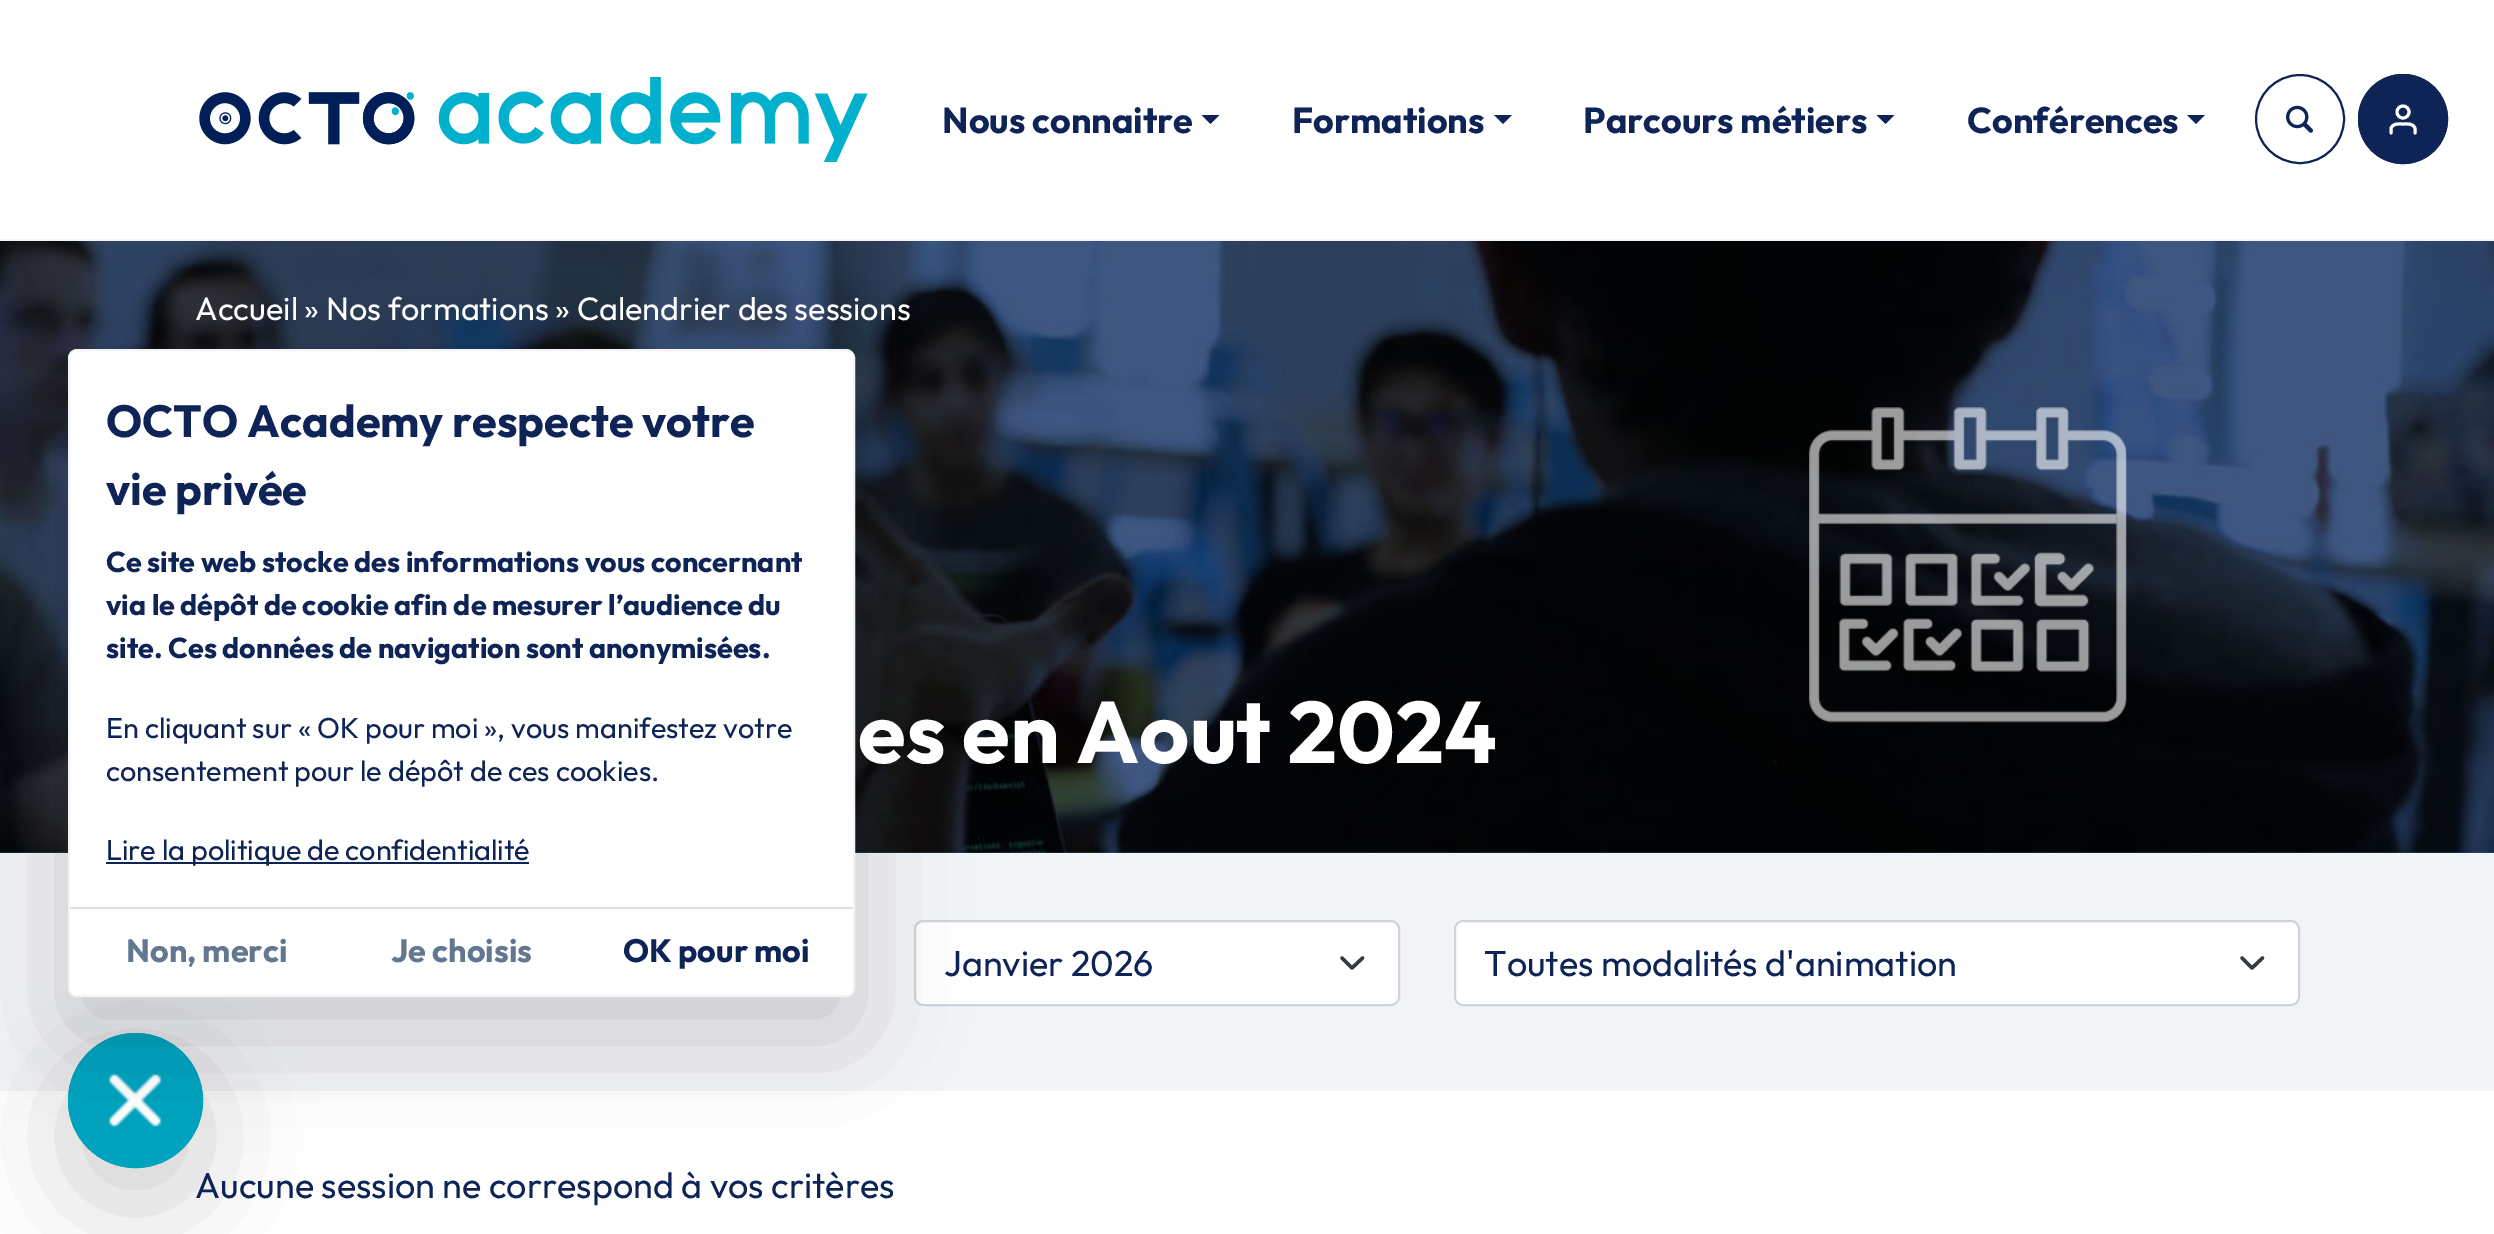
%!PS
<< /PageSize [2494 1234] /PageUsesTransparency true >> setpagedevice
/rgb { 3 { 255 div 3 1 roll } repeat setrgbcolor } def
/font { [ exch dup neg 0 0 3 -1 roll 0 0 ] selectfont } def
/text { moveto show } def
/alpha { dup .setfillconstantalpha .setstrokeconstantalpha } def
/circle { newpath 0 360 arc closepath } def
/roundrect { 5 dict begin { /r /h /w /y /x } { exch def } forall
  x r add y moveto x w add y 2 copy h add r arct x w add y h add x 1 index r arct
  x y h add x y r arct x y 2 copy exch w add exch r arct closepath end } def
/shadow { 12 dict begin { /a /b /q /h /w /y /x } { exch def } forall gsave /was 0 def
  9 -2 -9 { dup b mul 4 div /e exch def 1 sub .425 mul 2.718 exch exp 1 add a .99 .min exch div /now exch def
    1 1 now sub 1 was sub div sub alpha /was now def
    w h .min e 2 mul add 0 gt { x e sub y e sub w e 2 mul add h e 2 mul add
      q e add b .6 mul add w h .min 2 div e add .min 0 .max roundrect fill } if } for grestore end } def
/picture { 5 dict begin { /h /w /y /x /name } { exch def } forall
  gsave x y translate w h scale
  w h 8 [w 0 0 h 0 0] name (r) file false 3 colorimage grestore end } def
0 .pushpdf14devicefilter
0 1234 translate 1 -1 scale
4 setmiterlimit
255 255 255 rgb
0 0 2494 1234 rectfill
(img_03.rgb) 0 241 2494 612 picture
243 244 247 rgb
0 853 2494 238 rectfill
255 255 255 rgb
914 920 486 86 9 roundrect fill
52 58 64 rgb
3.4 setlinewidth
1 setlinecap
1 setlinejoin
1342 958 moveto 10 10 rlineto 10.5 -10 rlineto stroke
206 212 218 rgb
2 setlinewidth
0 setlinecap
0 setlinejoin
915 921 484 84 8 roundrect stroke
0 0 0 rgb
68 1069 135 135 67.5 54 0.18 shadow
0 163 190 rgb
135.5 1100.5 67.5 circle fill
(img_05.rgb) 108 1073 54 54 picture
5 setlinewidth
135.5 1100.5 65 circle stroke
0 0 0 rgb
68 385 787 648 9 54 0.18 shadow
243 244 247 rgb
0 239 2494 2 rectfill
(img_01.rgb) 199 77 669 85 picture
14 35 86 rgb
1201.5 115 moveto 18 0 rlineto -9 9 rlineto closepath fill
1494 115 moveto 18 0 rlineto -9 9 rlineto closepath fill
1876.5 115 moveto 18 0 rlineto -9 9 rlineto closepath fill
2187 115 moveto 18 0 rlineto -9 9 rlineto closepath fill
(img_02.rgb) 2286 105 27 28 picture
2 setlinewidth
2300 119 44 circle stroke
2403 119 45 circle fill
255 255 255 rgb
3 setlinewidth
1 setlinecap
1 setlinejoin
2415 133 moveto 0 -4.5 rlineto -1.5 -5.5 -7.5 -4.5 -12 -4.5 rcurveto -4.5 0 -10.5 -1 -12 4.5 rcurveto 0 4.5 rlineto stroke
0 setlinecap
0 setlinejoin
2403 112 6 circle stroke
14 35 86 rgb
2 setlinewidth
2403 119 44 circle stroke
(img_04.rgb) 1809 407 318 316 picture
255 255 255 rgb
1454 920 846 86 9 roundrect fill
52 58 64 rgb
3.4 setlinewidth
1 setlinecap
1 setlinejoin
2242 958 moveto 10 10 rlineto 10.5 -10 rlineto stroke
206 212 218 rgb
2 setlinewidth
0 setlinecap
0 setlinejoin
1455 921 844 84 8 roundrect stroke
255 255 255 rgb
69 350 785 646 8 roundrect gsave fill grestore
243 244 247 rgb
stroke
14 35 86 rgb
106 862 423 2 rectfill
255 255 255 rgb
70 907 moveto 783 0 rlineto 0 81 rlineto 0 4 -3 7 -7 7 rcurveto -769 0 rlineto -4 0 -7 -3 -7 -7 rcurveto closepath fill
223 223 223 rgb
70 907 783 2 rectfill
/Outfit-Bold 36 font
14 35 86 rgb
(Nous connaitre) 942 133 text
(Formations) 1292 133 text
(Parcours métiers) 1583 133 text
(Conférences) 1967 133 text
/Outfit-Regular 32.4 font
255 255 255 rgb
(Accueil » Nos formations » Calendrier des sessions) 195 320 text
/Outfit-Bold 87 font
(es en Aout 2024) 858 763 text
/Outfit-Regular 36 font
14 35 86 rgb
(Janvier 2026) 944 976 text
(Toutes modalités d'animation) 1484 976 text
(Aucune session ne correspond à vos critères) 195 1198 text
/Outfit-Bold 45 font
(OCTO Academy respecte votre) 106 437 text
(vie privée) 106 505 text
/Outfit-Bold 28.8 font
(Ce site web stocke des informations vous concernant) 106 572 text
(via le dépôt de cookie afin de mesurer l’audience du) 106 615 text
(site. Ces données de navigation sont anonymisées.) 106 658 text
/Outfit-Regular 28.8 font
(En cliquant sur « OK pour moi », vous manifestez votre) 106 738 text
(consentement pour le dépôt de ces cookies.) 106 781 text
(Lire la politique de confidentialité) 106 860 text
/Outfit-Bold 32.4 font
98 120 145 rgb
(Non, merci) 126 962 text
(Je choisis) 391 962 text
14 35 86 rgb
(OK pour moi) 623 962 text
.poppdf14devicefilter showpage
